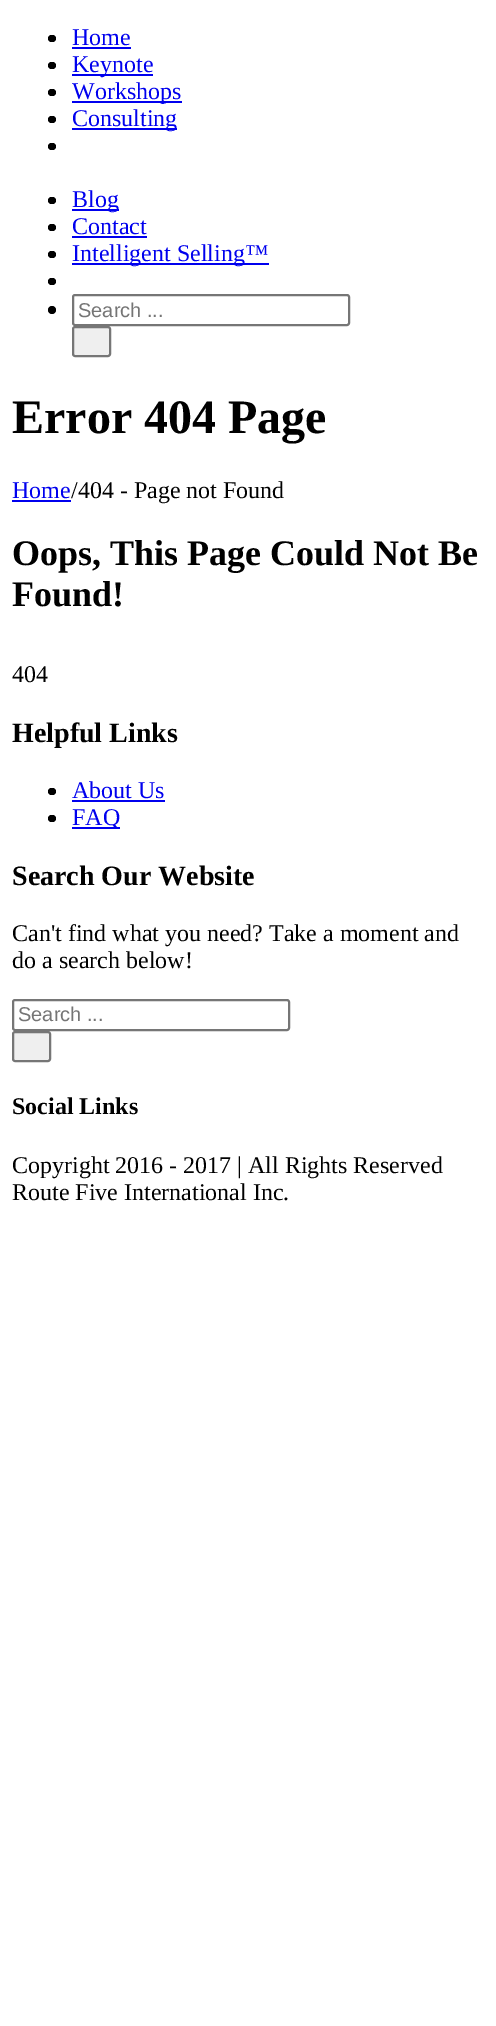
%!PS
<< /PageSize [496 2026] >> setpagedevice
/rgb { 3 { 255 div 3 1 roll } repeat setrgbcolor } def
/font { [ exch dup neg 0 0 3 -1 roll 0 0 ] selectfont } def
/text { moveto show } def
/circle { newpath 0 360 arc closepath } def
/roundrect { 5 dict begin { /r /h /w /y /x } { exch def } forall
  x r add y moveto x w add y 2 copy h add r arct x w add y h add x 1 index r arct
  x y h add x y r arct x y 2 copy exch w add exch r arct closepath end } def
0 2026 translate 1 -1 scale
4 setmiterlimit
255 255 255 rgb
0 0 496 2026 rectfill
0 0 0 rgb
48 35 8 7 3.5 roundrect fill
0 0 238 rgb
72 47 59 2 rectfill
0 0 0 rgb
48 62 8 7 3.5 roundrect fill
0 0 238 rgb
72 74 81 2 rectfill
0 0 0 rgb
48 89 8 7 3.5 roundrect fill
0 0 238 rgb
72 101 110 2 rectfill
0 0 0 rgb
48 116 8 7 3.5 roundrect fill
0 0 238 rgb
72 128 105 2 rectfill
0 0 0 rgb
48 143 8 7 3.5 roundrect fill
48 197 8 7 3.5 roundrect fill
0 0 238 rgb
72 209 47 2 rectfill
0 0 0 rgb
48 224 8 7 3.5 roundrect fill
0 0 238 rgb
72 236 75 2 rectfill
0 0 0 rgb
48 251 8 7 3.5 roundrect fill
0 0 238 rgb
72 263 197 2 rectfill
0 0 0 rgb
48 278 8 7 3.5 roundrect fill
52 310 4 circle fill
118 118 118 rgb
2 setlinewidth
73 295 276 30 2 roundrect stroke
239 239 239 rgb
73 327 37 29 2 roundrect gsave fill grestore
118 118 118 rgb
stroke
0 0 238 rgb
12 500 59 2 rectfill
0 0 0 rgb
48 788 8 7 3.5 roundrect fill
0 0 238 rgb
72 800 93 2 rectfill
0 0 0 rgb
48 815 8 7 3.5 roundrect fill
0 0 238 rgb
72 827 48 2 rectfill
118 118 118 rgb
13 1000 276 30 2 roundrect stroke
239 239 239 rgb
13 1032 37 29 2 roundrect gsave fill grestore
118 118 118 rgb
stroke
/LiberationSerif-Regular 24 font
0 0 238 rgb
(Home) 72 45 text
(Keynote) 72 72 text
(Workshops) 72 99 text
(Consulting) 72 126 text
(Blog) 72 207 text
(Contact) 72 234 text
(Intelligent Selling™) 72 261 text
/LiberationSans-Regular 20 font
117 117 117 rgb
(Search ...) 78 317 text
/LiberationSerif-Bold 48 font
0 0 0 rgb
(Error 404 Page) 12 433 text
/LiberationSerif-Regular 24 font
0 0 238 rgb
(Home) 12 498 text
0 0 0 rgb
(/404 - Page not Found) 71 498 text
/LiberationSerif-Bold 36 font
(Oops, This Page Could Not Be) 12 565 text
(Found!) 12 606 text
/LiberationSerif-Regular 24 font
(404) 12 682 text
/LiberationSerif-Bold 28 font
(Helpful Links) 12 742 text
/LiberationSerif-Regular 24 font
0 0 238 rgb
(About Us) 72 798 text
(FAQ) 72 825 text
/LiberationSerif-Bold 28 font
0 0 0 rgb
(Search Our Website) 12 885 text
/LiberationSerif-Regular 24 font
(Can't find what you need? Take a moment and) 12 941 text
(do a search below!) 12 968 text
/LiberationSans-Regular 20 font
117 117 117 rgb
(Search ...) 18 1021 text
/LiberationSerif-Bold 24 font
0 0 0 rgb
(Social Links) 12 1114 text
/LiberationSerif-Regular 24 font
(Copyright 2016 - 2017 | All Rights Reserved) 12 1173 text
(Route Five International Inc.) 12 1200 text
showpage
